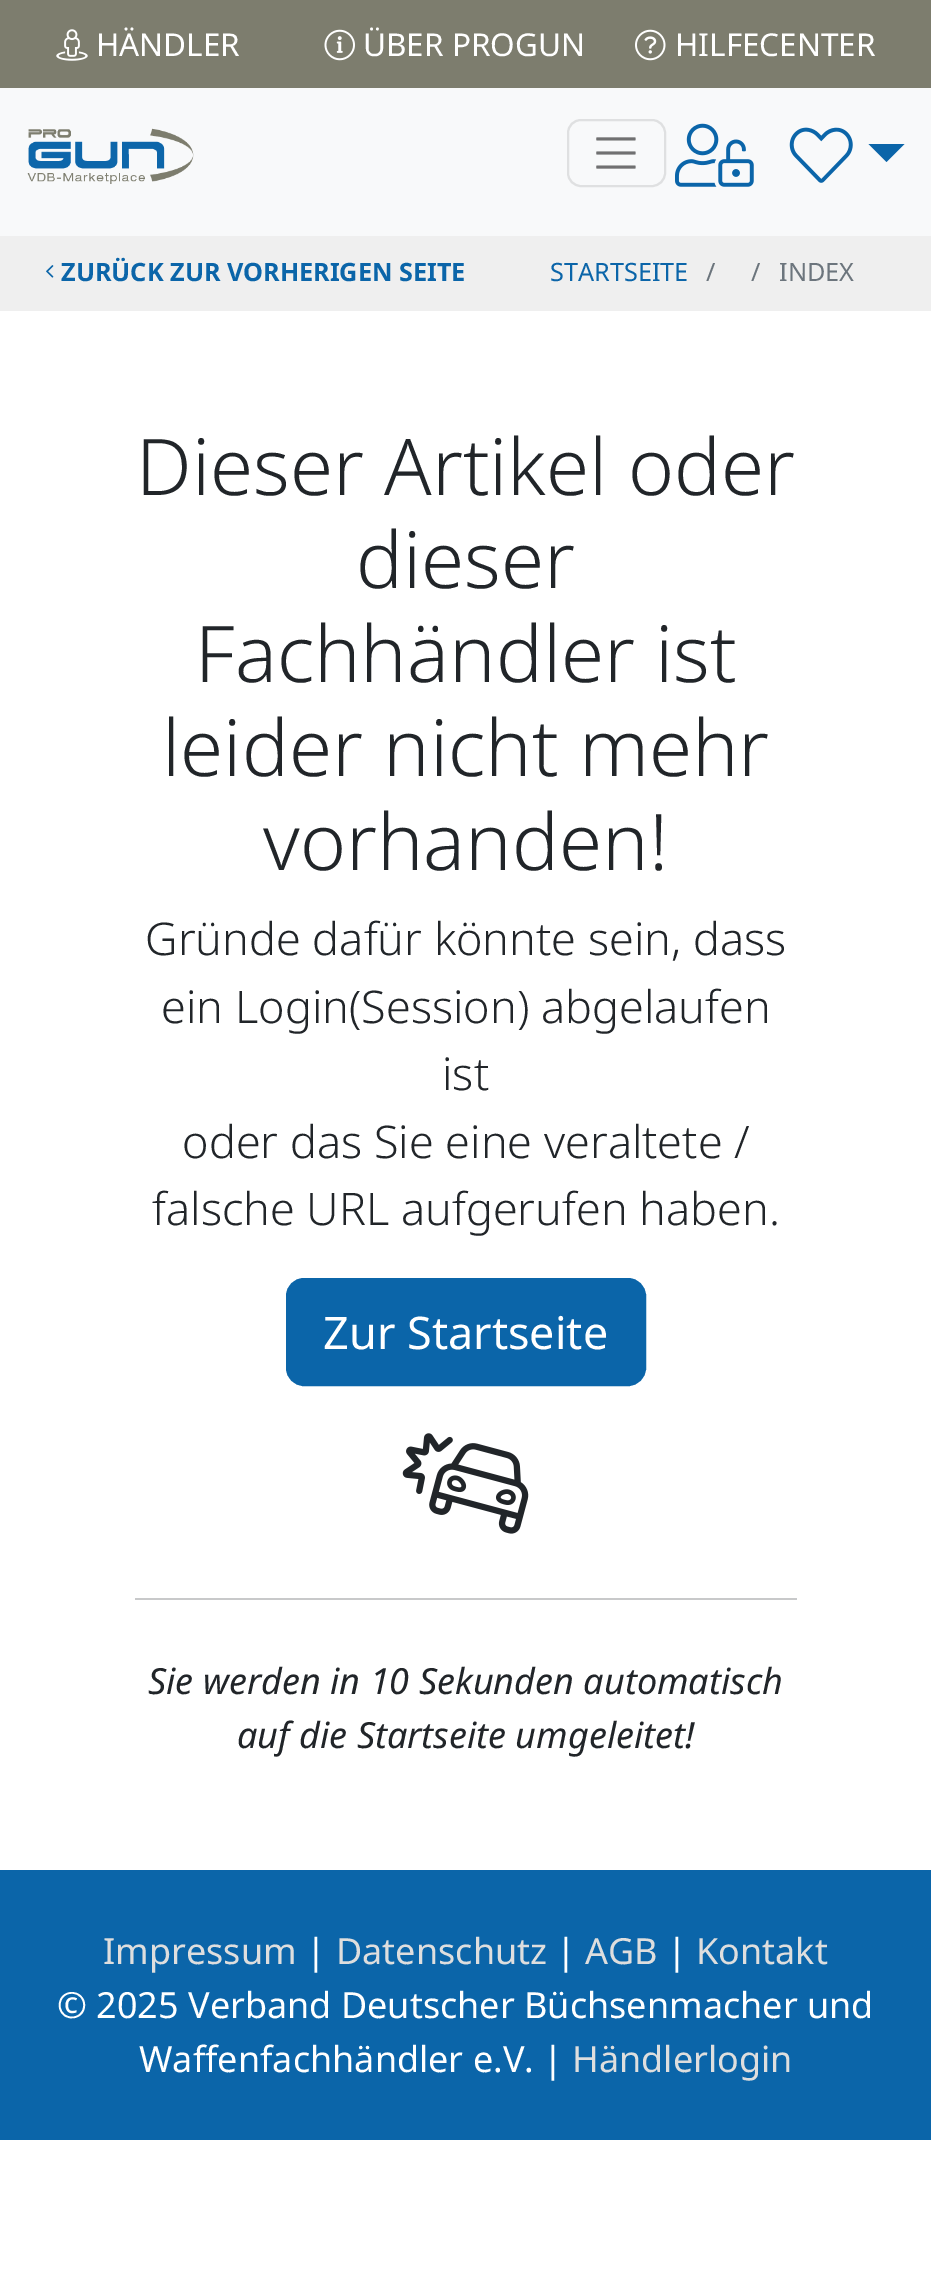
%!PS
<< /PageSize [931 2295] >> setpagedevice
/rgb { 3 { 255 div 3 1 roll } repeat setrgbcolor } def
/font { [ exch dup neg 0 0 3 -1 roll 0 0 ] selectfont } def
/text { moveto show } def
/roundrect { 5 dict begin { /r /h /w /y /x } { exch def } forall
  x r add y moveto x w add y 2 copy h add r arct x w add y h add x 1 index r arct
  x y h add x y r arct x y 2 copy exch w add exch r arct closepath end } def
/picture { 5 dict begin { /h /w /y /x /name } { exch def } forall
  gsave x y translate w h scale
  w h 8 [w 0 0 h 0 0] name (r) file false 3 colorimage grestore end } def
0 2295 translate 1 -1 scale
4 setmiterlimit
255 255 255 rgb
0 0 931 2295 rectfill
125 125 110 rgb
0 0 931 88 rectfill
(img_01.rgb) 56 29 32 32 picture
(img_02.rgb) 324 29 31 32 picture
(img_03.rgb) 635 29 31 32 picture
248 249 250 rgb
0 88 931 148 rectfill
(img_04.rgb) 27 128 167 56 picture
223 224 225 rgb
2 setlinewidth
568 120 97 66 13 roundrect stroke
(img_05.rgb) 596 137 40 32 picture
(img_06.rgb) 675 123 79 64 picture
(img_07.rgb) 789 127 64 56 picture
11 101 169 rgb
868.5 144 moveto 36 0 rlineto -18 18 rlineto closepath fill
239 239 239 rgb
0 236 931 75 rectfill
(img_08.rgb) 46 265 8 13 picture
11 101 169 rgb
287 1279 358 106 17 roundrect gsave fill grestore
stroke
(img_09.rgb) 402 1433 127 101 picture
200 201 202 rgb
135 1598 662 2 rectfill
11 101 169 rgb
0 1870 931 270 rectfill
/NotoSans-Regular 31.5 font
255 255 255 rgb
(HÄNDLER) 96 56 text
(ÜBER PROGUN) 363 56 text
(HILFECENTER) 675 56 text
/NotoSans-Bold 25.25 font
11 101 169 rgb
(ZURÜCK ZUR VORHERIGEN SEITE) 61 281 text
/NotoSans-Regular 25.25 font
(STARTSEITE) 550 281 text
108 117 125 rgb
(/) 706 281 text
(/) 751 281 text
(INDEX) 779 281 text
/NotoSans-Light 78.25 font
33 37 41 rgb
(Dieser Artikel oder) 136 495 text
(dieser) 356 588 text
(Fachhändler ist) 195 682 text
(leider nicht mehr) 162 776 text
(vorhanden!) 263 870 text
/NotoSans-Light 45 font
(Gründe dafür könnte sein, dass) 145 955 text
(ein Login\(Session\) abgelaufen) 161 1023 text
(ist) 442 1090 text
(oder das Sie eine veraltete /) 182 1158 text
(falsche URL aufgerufen haben.) 152 1225 text
/NotoSans-Regular 45 font
255 255 255 rgb
(Zur Startseite) 323 1349 text
/NotoSans-Italic 36 font
33 37 41 rgb
(Sie werden in 10 Sekunden automatisch) 148 1694 text
(auf die Startseite umgeleitet!) 237 1748 text
/NotoSans-Regular 36 font
222 222 222 rgb
(Impressum) 103 1964 text
255 255 255 rgb
(|) 306 1964 text
222 222 222 rgb
(Datenschutz) 336 1964 text
255 255 255 rgb
(|) 556 1964 text
222 222 222 rgb
(AGB) 585 1964 text
255 255 255 rgb
(|) 667 1964 text
222 222 222 rgb
(Kontakt) 696 1964 text
255 255 255 rgb
(© 2025 Verband Deutscher Büchsenmacher und) 57 2018 text
(Waffenfachhändler e.V. |) 139 2072 text
222 222 222 rgb
(Händlerlogin) 572 2072 text
showpage
